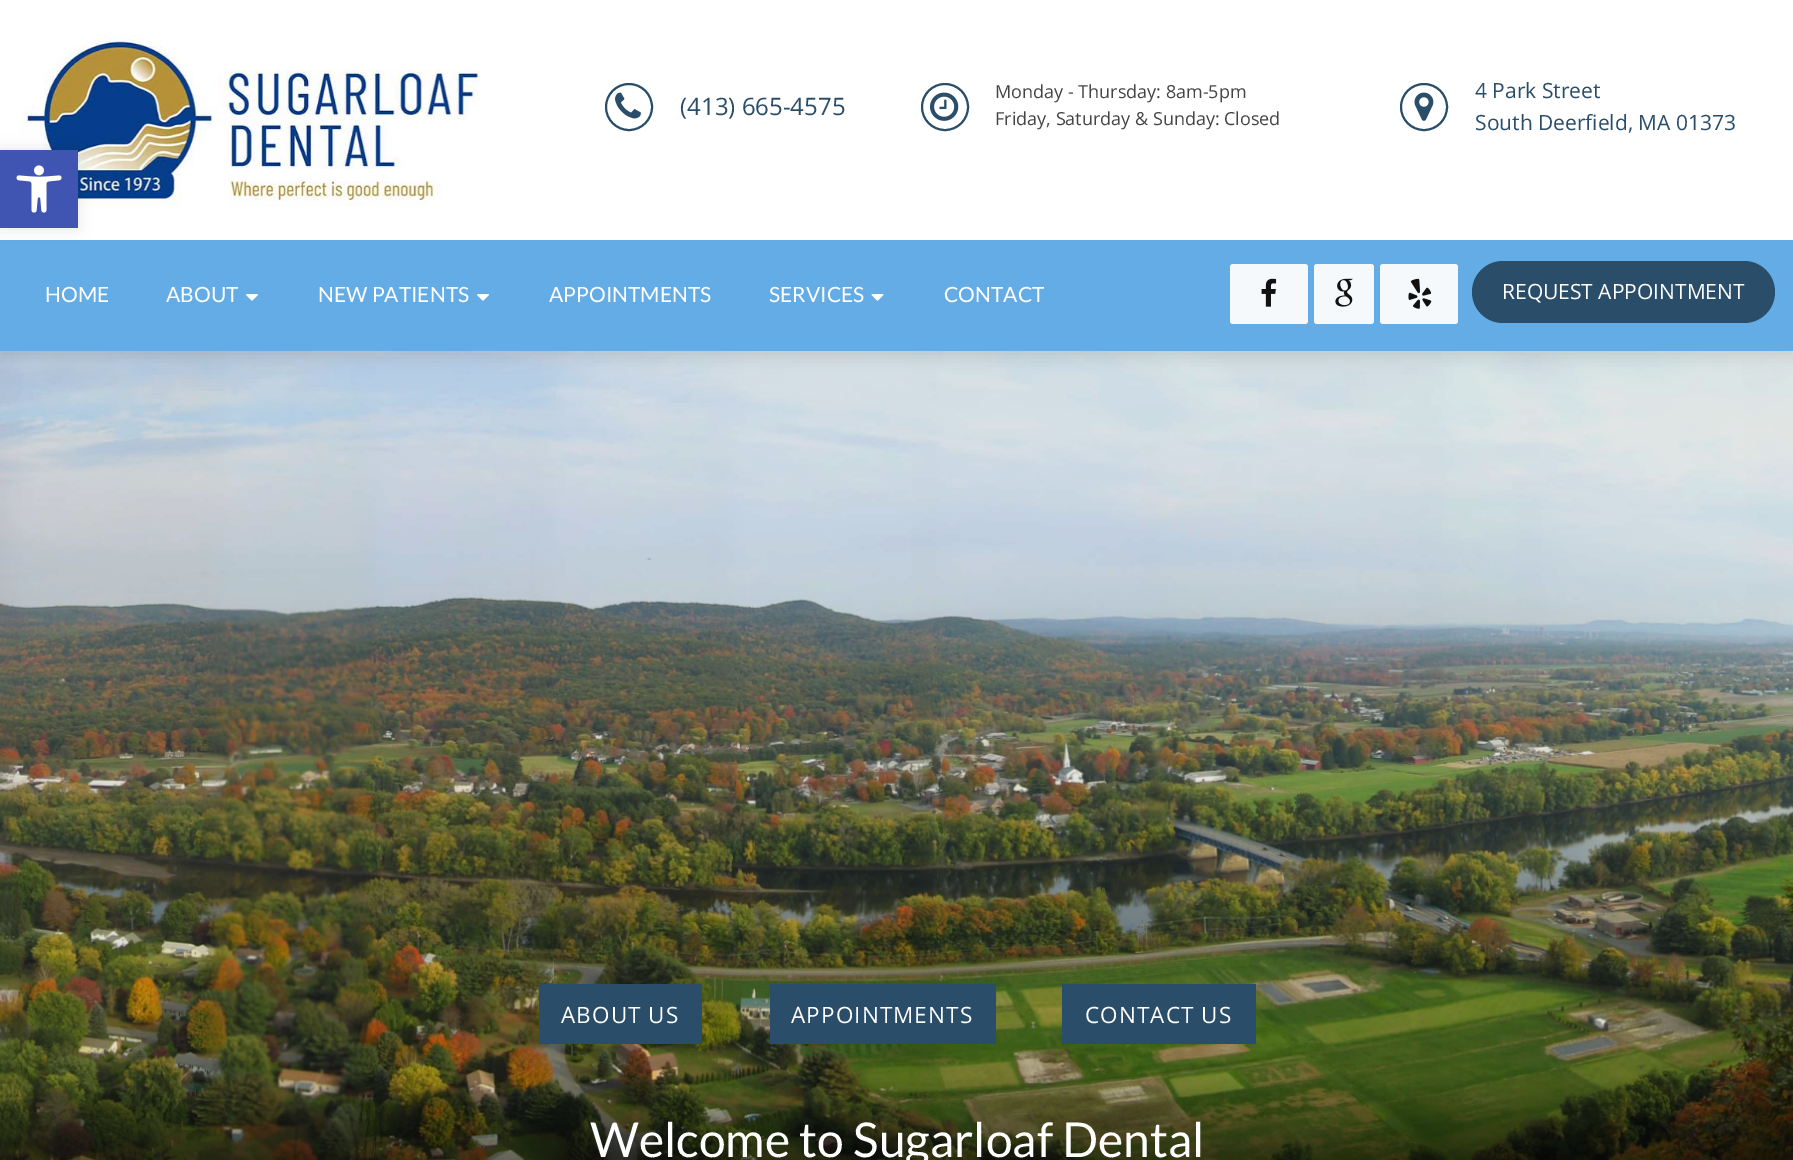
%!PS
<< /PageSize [1793 1160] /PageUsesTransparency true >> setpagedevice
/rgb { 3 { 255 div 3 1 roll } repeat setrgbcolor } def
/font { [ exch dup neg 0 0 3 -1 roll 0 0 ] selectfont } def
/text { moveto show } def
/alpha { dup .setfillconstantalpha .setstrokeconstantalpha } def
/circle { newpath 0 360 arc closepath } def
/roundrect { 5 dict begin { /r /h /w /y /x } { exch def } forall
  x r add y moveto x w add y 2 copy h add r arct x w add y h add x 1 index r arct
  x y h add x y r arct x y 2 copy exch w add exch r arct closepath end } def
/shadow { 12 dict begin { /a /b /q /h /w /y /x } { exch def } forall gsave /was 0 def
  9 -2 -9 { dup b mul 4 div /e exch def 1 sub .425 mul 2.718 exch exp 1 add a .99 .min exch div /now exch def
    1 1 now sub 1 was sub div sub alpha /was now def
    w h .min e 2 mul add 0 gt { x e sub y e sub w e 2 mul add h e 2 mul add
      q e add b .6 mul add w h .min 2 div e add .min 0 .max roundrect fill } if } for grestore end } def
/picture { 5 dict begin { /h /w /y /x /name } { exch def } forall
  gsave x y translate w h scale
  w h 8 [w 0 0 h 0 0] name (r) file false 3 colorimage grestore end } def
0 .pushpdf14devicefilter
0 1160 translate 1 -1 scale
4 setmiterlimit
255 255 255 rgb
0 0 1793 1160 rectfill
(img_10.rgb) 0 351 1793 809 picture
0 0 0 rgb
0 6 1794 351 0 7.5 0.1 shadow
255 255 255 rgb
0 0 1793 240 rectfill
(img_01.rgb) 20 35 460 172 picture
42 77 105 rgb
2 setlinewidth
629 107 23 circle stroke
(img_02.rgb) 615 92 26 27 picture
945 107 23 circle stroke
(img_03.rgb) 930 92 29 29 picture
1424 107 23 circle stroke
(img_04.rgb) 1414 92 20 29 picture
99 172 229 rgb
0 240 1793 111 rectfill
(img_05.rgb) 246 294 12 7 picture
(img_05.rgb) 477 294 12 7 picture
(img_06.rgb) 871 294 13 7 picture
245 249 251 rgb
1230 264 78 60 3 roundrect fill
(img_07.rgb) 1261 278 16 29 picture
1314 264 60 60 3 roundrect fill
(img_08.rgb) 1335 278 18 29 picture
1380 264 78 60 3 roundrect fill
(img_09.rgb) 1408 278 24 31 picture
42 77 105 rgb
1472 261 303 62 31 roundrect fill
539 984 163 60 rectfill
770 984 226 60 rectfill
1062 984 194 60 rectfill
0 0 0 rgb
0 150 78 78 0 7.5 0.1 shadow
64 84 178 rgb
0 150 78 78 rectfill
(img_11.rgb) 16 165 46 48 picture
/OpenSans-Regular 24 font
42 77 105 rgb
(\(413\) 665-4575) 680 115 text
/OpenSans-Regular 18 font
68 68 68 rgb
(Monday - Thursday: 8am-5pm) 995 98 text
(Friday, Saturday & Sunday: Closed) 995 125 text
/OpenSans-Regular 21 font
42 77 105 rgb
(4 Park Street) 1475 98 text
(South Deerfield, MA 01373) 1475 130 text
/Lato-Regular 21 font
255 255 255 rgb
(HOME) 45 302 text
(ABOUT) 166 302 text
(NEW PATIENTS) 318 302 text
(APPOINTMENTS) 549 302 text
(SERVICES) 769 302 text
(CONTACT) 944 302 text
/OpenSans-Regular 21 font
(REQUEST APPOINTMENT) 1502 299 text
/OpenSans-Regular 22.5 font
561 1023 moveto 1.1 0 (ABOUT US) ashow
791 1023 moveto 1.1 0 (APPOINTMENTS) ashow
1085 1023 moveto 1.1 0 (CONTACT US) ashow
/Lato-Regular 48 font
(Welcome to Sugarloaf Dental) 590 1157 text
.poppdf14devicefilter showpage
